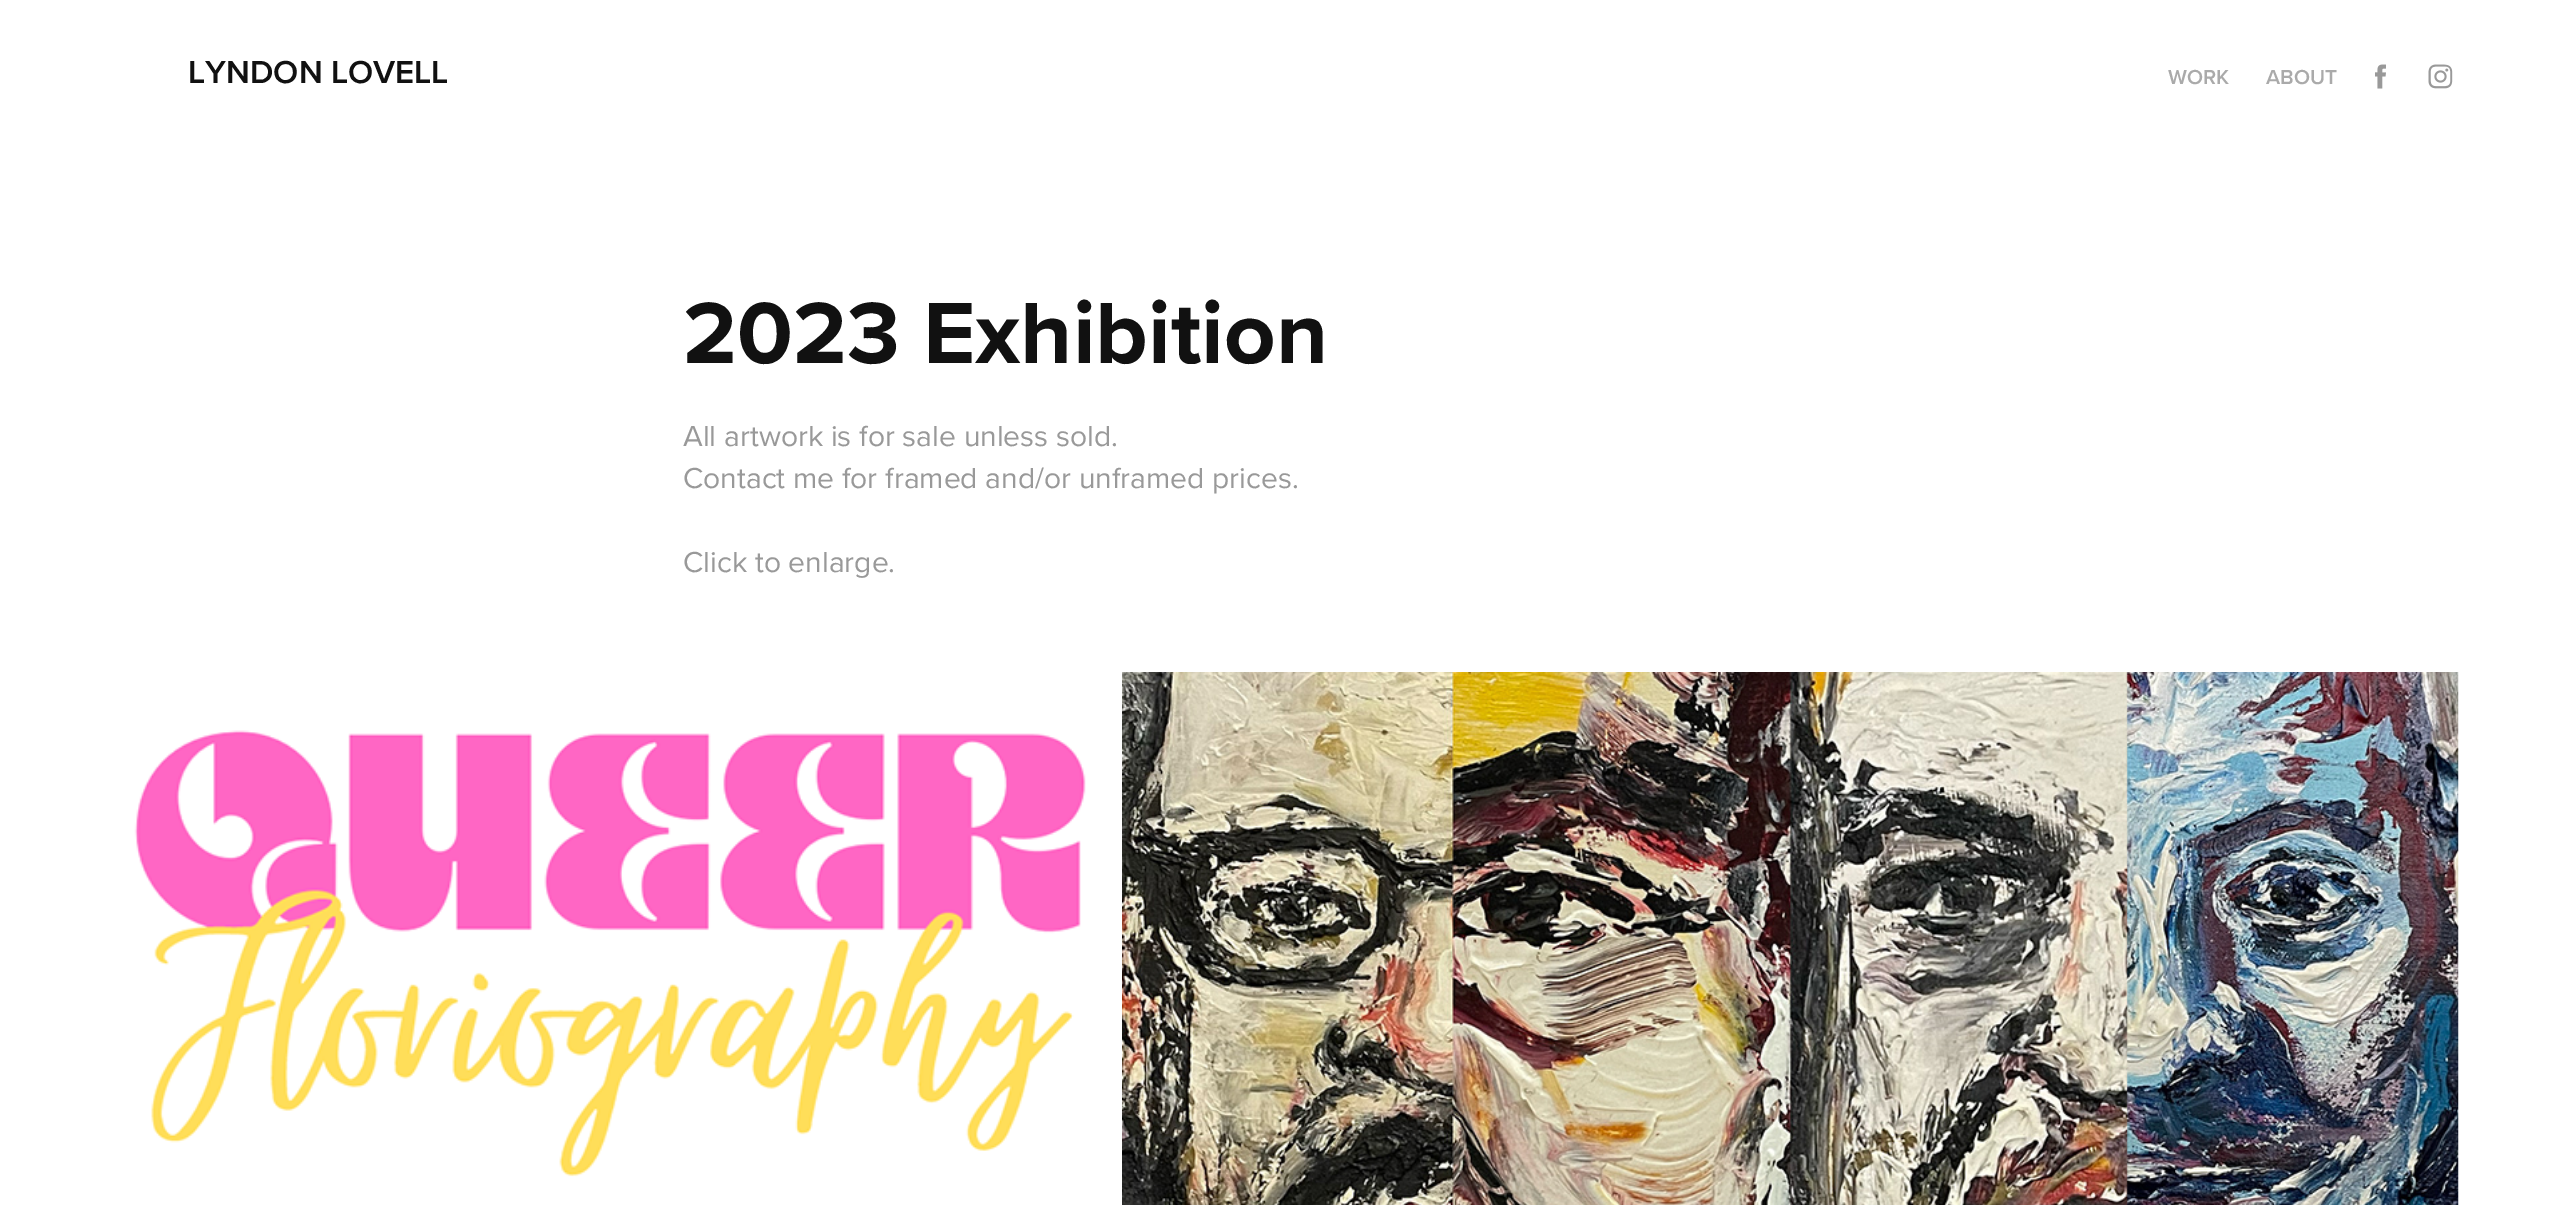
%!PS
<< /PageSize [2565 1205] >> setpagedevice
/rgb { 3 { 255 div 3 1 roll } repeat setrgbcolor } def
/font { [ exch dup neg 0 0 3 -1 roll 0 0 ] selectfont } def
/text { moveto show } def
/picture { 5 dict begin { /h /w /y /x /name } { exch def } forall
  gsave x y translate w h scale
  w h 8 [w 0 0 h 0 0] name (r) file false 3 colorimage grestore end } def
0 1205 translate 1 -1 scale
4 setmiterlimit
255 255 255 rgb
0 0 2565 1205 rectfill
(img_01.rgb) 2375 64 11 25 picture
(img_02.rgb) 2428 64 25 25 picture
(img_03.rgb) 134 730 952 447 picture
(img_04.rgb) 1122 672 1337 533 picture
/ProximaNova-SemiBold 33 font
17 17 17 rgb
(LYNDON LOVELL) 188 83 text
/ProximaNova-SemiBold 21 font
170 170 170 rgb
(WORK) 2168 84 text
(ABOUT) 2266 84 text
/ProximaNova-Bold 90 font
17 17 17 rgb
(2023 Exhibition) 683 363 text
/ProximaNova-Regular 30 font
153 153 153 rgb
(All artwork is for sale unless sold.) 683 446 text
(Contact me for framed and/or unframed prices.) 683 488 text
(Click to enlarge.) 683 572 text
showpage
